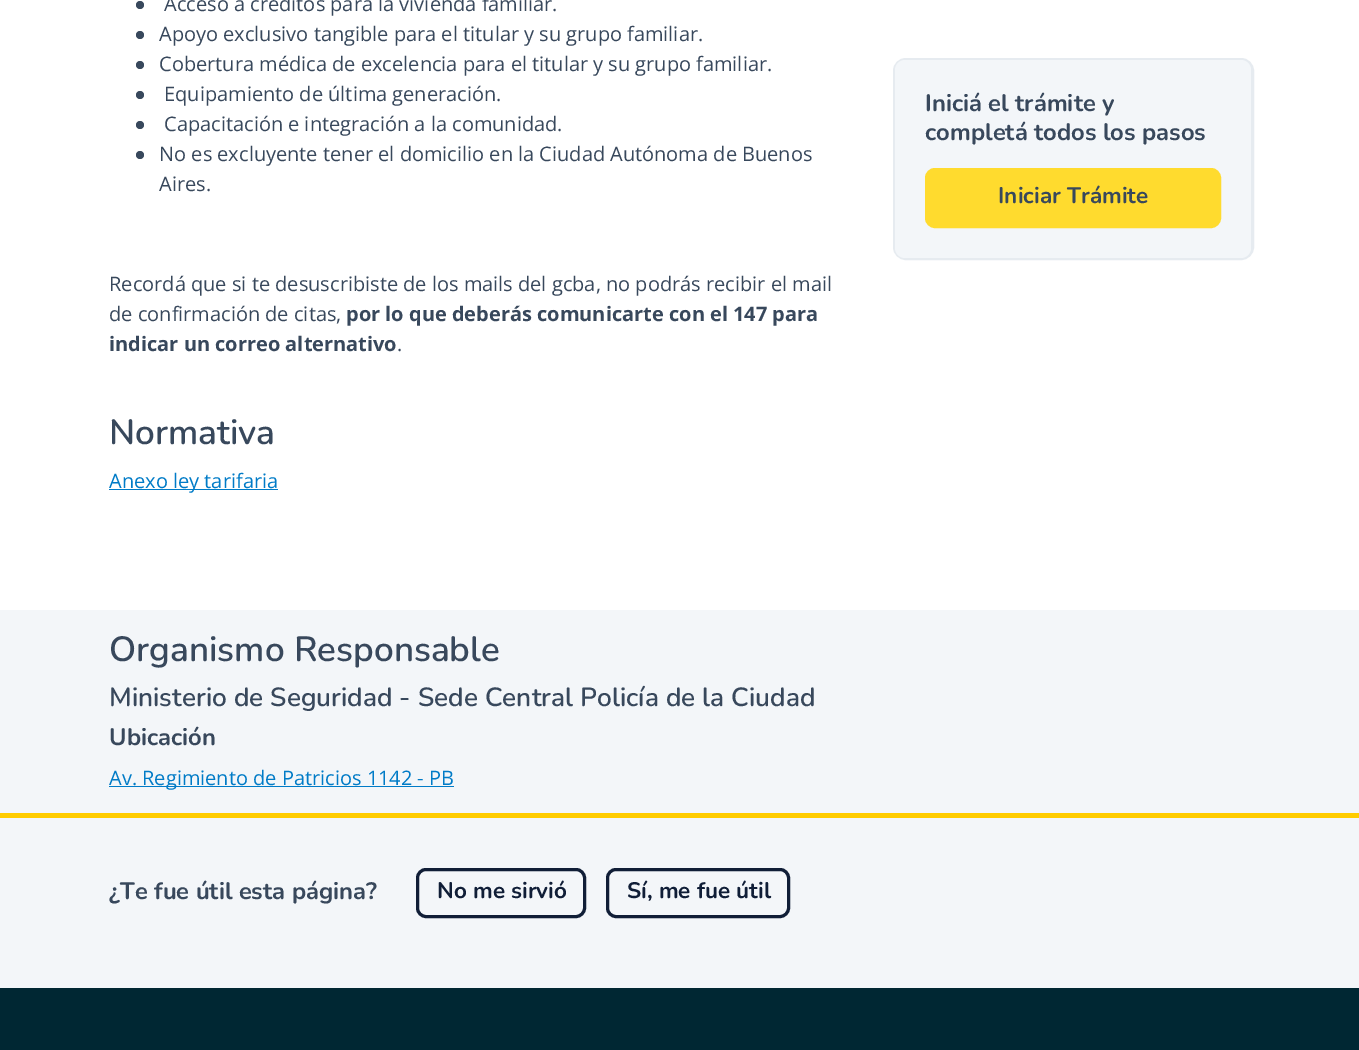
%!PS
<< /PageSize [1359 1050] >> setpagedevice
/rgb { 3 { 255 div 3 1 roll } repeat setrgbcolor } def
/font { [ exch dup neg 0 0 3 -1 roll 0 0 ] selectfont } def
/text { moveto show } def
/circle { newpath 0 360 arc closepath } def
/roundrect { 5 dict begin { /r /h /w /y /x } { exch def } forall
  x r add y moveto x w add y 2 copy h add r arct x w add y h add x 1 index r arct
  x y h add x y r arct x y 2 copy exch w add exch r arct closepath end } def
0 1050 translate 1 -1 scale
4 setmiterlimit
255 255 255 rgb
0 0 1359 1050 rectfill
56 72 92 rgb
140 5 4 circle fill
140 35 4 circle fill
140 65 4 circle fill
140 95 4 circle fill
140 125 4 circle fill
140 155 4 circle fill
0 123 199 rgb
109 489 169 1 rectfill
230 235 240 rgb
3 setlinewidth
894.5 59.5 358 199 11.5 roundrect stroke
243 246 249 rgb
895 60 356 198 10 roundrect fill
255 219 46 rgb
926.5 169.5 293 57 8.5 roundrect gsave fill grestore
stroke
243 246 249 rgb
0 610 1359 203 rectfill
0 123 199 rgb
109 786 345 1 rectfill
243 246 249 rgb
0 818 1359 170 rectfill
255 204 0 rgb
0 813 1359 5 rectfill
16 30 55 rgb
417.5 869.5 167 47 8.5 roundrect stroke
607.5 869.5 181 47 8.5 roundrect stroke
0 39 51 rgb
0 988 1359 62 rectfill
/OpenSans-Regular 20 font
56 72 92 rgb
(Acceso a créditos para la vivienda familiar.) 164 11 text
(Apoyo exclusivo tangible para el titular y su grupo familiar.) 159 41 text
(Cobertura médica de excelencia para el titular y su grupo familiar.) 159 71 text
(Equipamiento de última generación.) 164 101 text
(Capacitación e integración a la comunidad.) 164 131 text
(No es excluyente tener el domicilio en la Ciudad Autónoma de Buenos) 159 161 text
(Aires.) 159 191 text
(Recordá que si te desuscribiste de los mails del gcba, no podrás recibir el mail) 109 291 text
(de confirmación de citas,) 109 321 text
/OpenSans-Bold 20 font
(por lo que deberás comunicarte con el 147 para) 346 321 text
(indicar un correo alternativo) 109 351 text
/OpenSans-Regular 20 font
(.) 397 351 text
/Nunito-SemiBold 35 font
(Normativa) 109 444 text
/OpenSans-Regular 20 font
0 123 199 rgb
(Anexo ley tarifaria) 109 488 text
/Nunito-Bold 23.75 font
56 72 92 rgb
(Iniciá el trámite y) 925 111 text
(completá todos los pasos) 925 140 text
/Nunito-Bold 22.5 font
(Iniciar Trámite) 998 203 text
/Nunito-SemiBold 35 font
(Organismo Responsable) 109 661 text
/Nunito-SemiBold 26.25 font
(Ministerio de Seguridad - Sede Central Policía de la Ciudad) 109 706 text
/Nunito-Bold 23.75 font
(Ubicación) 109 745 text
/OpenSans-Regular 20 font
0 123 199 rgb
(Av. Regimiento de Patricios 1142 - PB) 109 785 text
/Nunito-Bold 23.75 font
56 72 92 rgb
(¿Te fue útil esta página?) 109 899 text
/Nunito-Bold 22.5 font
16 30 55 rgb
(No me sirvió) 437 898 text
(Sí, me fue útil) 627 898 text
showpage
